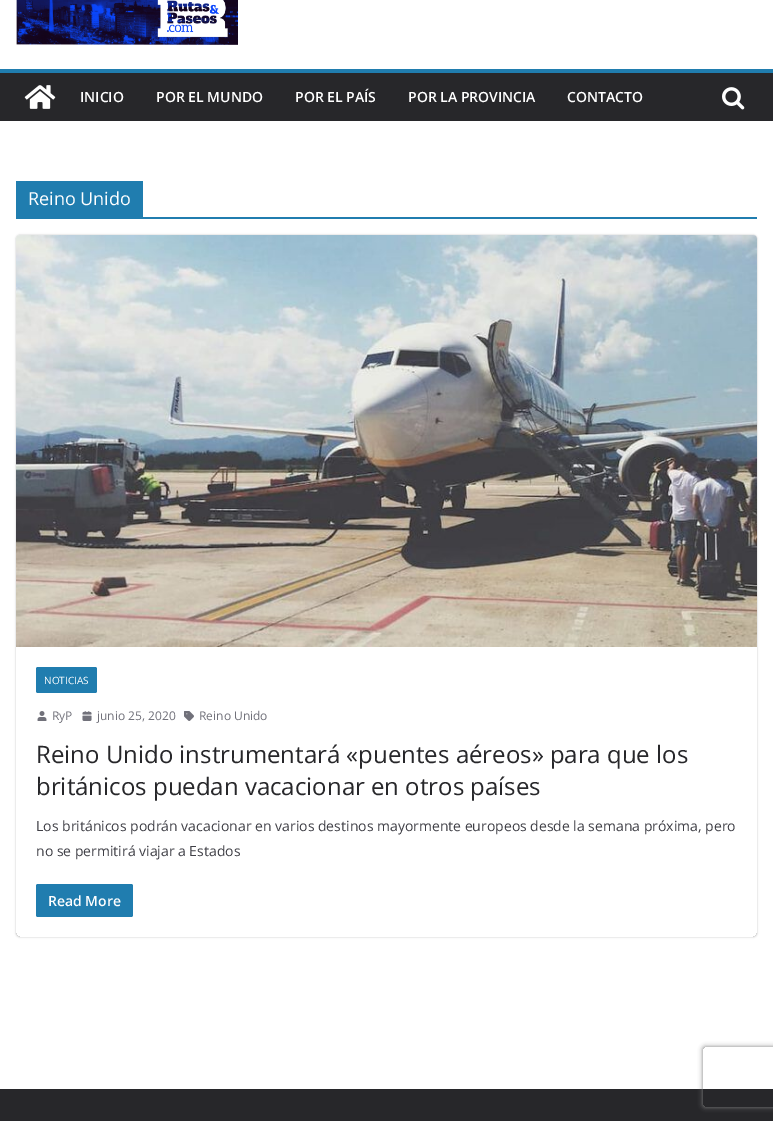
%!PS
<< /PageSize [773 1121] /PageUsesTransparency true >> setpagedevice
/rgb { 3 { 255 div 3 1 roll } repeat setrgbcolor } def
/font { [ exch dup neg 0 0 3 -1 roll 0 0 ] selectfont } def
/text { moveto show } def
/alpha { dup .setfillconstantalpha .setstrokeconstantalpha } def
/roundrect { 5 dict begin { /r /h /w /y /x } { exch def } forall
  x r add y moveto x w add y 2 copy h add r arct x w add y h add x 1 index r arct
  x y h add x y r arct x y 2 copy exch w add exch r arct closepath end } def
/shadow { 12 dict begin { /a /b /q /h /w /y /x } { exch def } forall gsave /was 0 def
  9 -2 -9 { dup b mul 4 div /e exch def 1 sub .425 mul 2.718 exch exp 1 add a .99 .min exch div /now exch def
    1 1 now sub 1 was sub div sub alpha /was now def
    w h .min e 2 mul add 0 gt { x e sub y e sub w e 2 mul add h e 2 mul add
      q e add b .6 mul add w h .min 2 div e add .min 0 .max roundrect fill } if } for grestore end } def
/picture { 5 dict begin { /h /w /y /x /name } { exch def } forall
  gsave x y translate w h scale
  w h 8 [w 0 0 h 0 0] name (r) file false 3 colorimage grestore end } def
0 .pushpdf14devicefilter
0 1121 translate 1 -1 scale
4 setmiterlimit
255 255 255 rgb
0 0 773 1121 rectfill
(img_01.rgb) 16 0 222 45 picture
39 39 42 rgb
0 73 773 48 rectfill
32 125 175 rgb
0 69 773 4 rectfill
(img_02.rgb) 24 85 32 24 picture
(img_03.rgb) 722 87 23 23 picture
16 217 741 2 rectfill
16 181 127 36 rectfill
gsave
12 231 moveto 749 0 rlineto 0 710 rlineto -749 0 rlineto closepath 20 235 moveto 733 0 rlineto 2 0 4 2 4 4 rcurveto 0 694 rlineto 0 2 -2 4 -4 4 rcurveto -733 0 rlineto -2 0 -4 -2 -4 -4 rcurveto 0 -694 rlineto 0 -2 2 -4 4 -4 rcurveto closepath eoclip newpath
0 0 0 rgb
16 235 741 702 4 1 0.24 shadow
grestore
(img_04.rgb) 16 235 741 412 picture
36 667 61 26 2 roundrect fill
(img_05.rgb) 37 711 10 10 picture
(img_06.rgb) 82 711 10 10 picture
(img_07.rgb) 184 711 10 10 picture
36 884 97 33 2 roundrect fill
39 39 42 rgb
0 1089 773 32 rectfill
gsave
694 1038 moveto 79 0 rlineto 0 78 rlineto -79 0 rlineto closepath 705 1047 moveto 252 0 rlineto 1 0 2 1 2 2 rcurveto 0 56 rlineto 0 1 -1 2 -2 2 rcurveto -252 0 rlineto -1 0 -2 -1 -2 -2 rcurveto 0 -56 rlineto 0 -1 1 -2 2 -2 rcurveto closepath eoclip newpath
128 128 128 rgb
703 1047 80 60 2 2.5 1 shadow
grestore
/OpenSans-SemiBold 14 font
255 255 255 rgb
(INICIO) 80 102 text
(POR EL MUNDO) 156 102 text
(POR EL PAÍS) 295 102 text
(POR LA PROVINCIA) 408 102 text
(CONTACTO) 567 102 text
/OpenSans-Regular 18 font
(Reino Unido) 28 205 text
/OpenSans-Regular 10 font
(NOTICIAS) 44 684 text
/OpenSans-Regular 12 font
113 113 122 rgb
(RyP) 52 720 text
(junio 25, 2020) 97 720 text
(Reino Unido) 199 720 text
/OpenSans-Regular 24 font
39 39 42 rgb
(Reino Unido instrumentará «puentes aéreos» para que los) 36 763 text
(británicos puedan vacacionar en otros países) 36 795 text
/OpenSans-Regular 14 font
63 63 70 rgb
(Los británicos podrán vacacionar en varios destinos mayormente europeos desde la semana próxima, pero) 36 831 text
(no se permitirá viajar a Estados) 36 856 text
/OpenSans-SemiBold 14 font
255 255 255 rgb
(Read More) 48 906 text
.poppdf14devicefilter showpage
